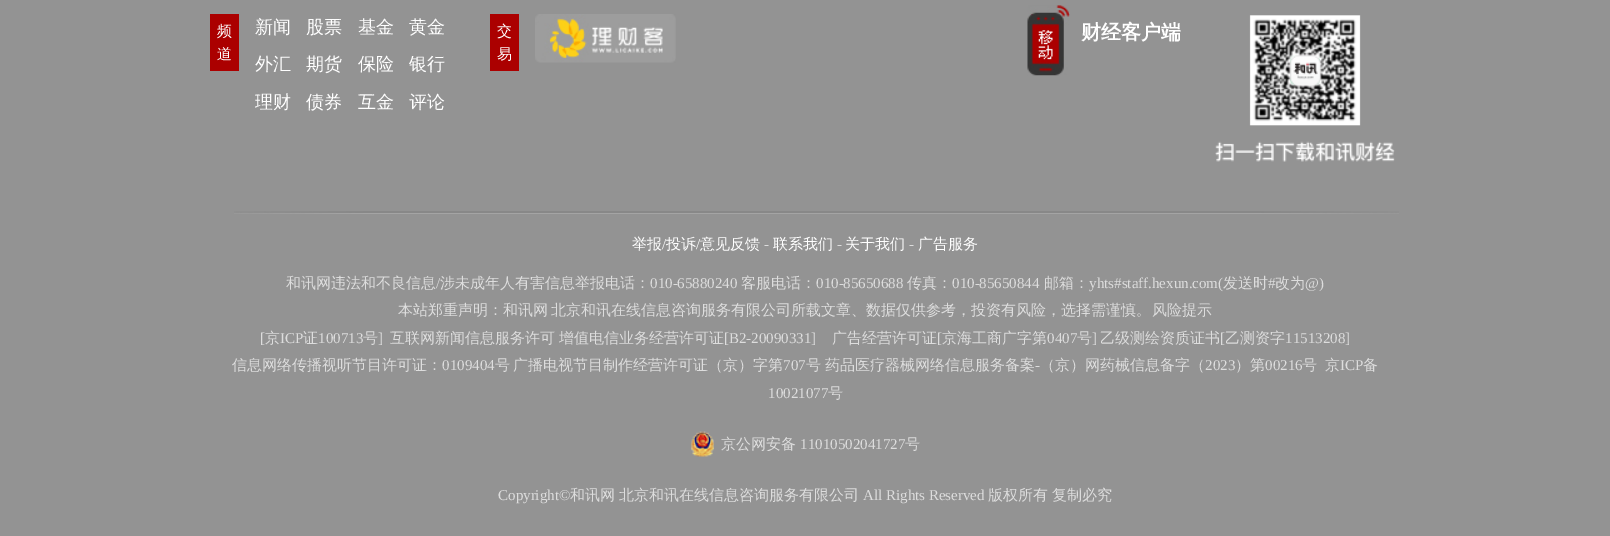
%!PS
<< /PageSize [1610 536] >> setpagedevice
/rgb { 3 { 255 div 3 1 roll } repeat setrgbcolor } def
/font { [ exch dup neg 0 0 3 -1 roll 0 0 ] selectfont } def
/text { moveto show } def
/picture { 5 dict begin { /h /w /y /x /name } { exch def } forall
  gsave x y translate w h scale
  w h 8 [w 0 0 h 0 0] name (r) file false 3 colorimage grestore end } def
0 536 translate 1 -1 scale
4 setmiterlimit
147 147 147 rgb
0 0 1610 536 rectfill
(img_01.rgb) 234 211 1165 3 picture
171 0 0 rgb
210 14 29 57 rectfill
490 14 29 57 rectfill
(img_02.rgb) 535 14 141 49 picture
(img_03.rgb) 1027 5 43 71 picture
(img_04.rgb) 1215 15 180 147 picture
(img_05.rgb) 691 431 23 26 picture
/WenQuanYiZenHei-Medium 15 font
255 255 255 rgb
(频) 217 36 text
(道) 217 59 text
/WenQuanYiZenHei-Medium 18 font
(新闻) 255 33 text
(股票) 306 33 text
(基金) 358 33 text
(黄金) 409 33 text
(外汇) 255 70 text
(期货) 306 70 text
(保险) 358 70 text
(银行) 409 70 text
(理财) 255 108 text
(债券) 306 108 text
(互金) 358 108 text
(评论) 409 108 text
/WenQuanYiZenHei-Medium 15 font
(交) 497 36 text
(易) 497 59 text
/WenQuanYiZenHei-Bold 20 font
(财经客户端) 1081 39 text
/WenQuanYiZenHei-Medium 15 font
(举报) 632 249 text
/LiberationSerif-Regular 15 font
(/) 662 249 text
/WenQuanYiZenHei-Medium 15 font
(投诉) 666 249 text
/LiberationSerif-Regular 15 font
(/) 696 249 text
/WenQuanYiZenHei-Medium 15 font
(意见反馈) 700 249 text
/LiberationSerif-Regular 15 font
221 221 221 rgb
(-) 764 249 text
/WenQuanYiZenHei-Medium 15 font
255 255 255 rgb
(联系我们) 773 249 text
/LiberationSerif-Regular 15 font
221 221 221 rgb
(-) 837 249 text
/WenQuanYiZenHei-Medium 15 font
255 255 255 rgb
(关于我们) 845 249 text
/LiberationSerif-Regular 15 font
221 221 221 rgb
(-) 909 249 text
/WenQuanYiZenHei-Medium 15 font
255 255 255 rgb
(广告服务) 918 249 text
221 221 221 rgb
(和讯网违法和不良信息) 286 288 text
/LiberationSerif-Regular 15 font
(/) 436 288 text
/WenQuanYiZenHei-Medium 15 font
(涉未成年人有害信息举报电话：) 440 288 text
/LiberationSerif-Regular 15 font
(010-65880240) 650 288 text
/WenQuanYiZenHei-Medium 15 font
(客服电话：) 741 288 text
/LiberationSerif-Regular 15 font
(010-85650688) 816 288 text
/WenQuanYiZenHei-Medium 15 font
(传真：) 907 288 text
/LiberationSerif-Regular 15 font
(010-85650844) 952 288 text
/WenQuanYiZenHei-Medium 15 font
(邮箱：) 1044 288 text
/LiberationSerif-Regular 15 font
(yhts#staff.hexun.com\() 1089 288 text
/WenQuanYiZenHei-Medium 15 font
(发送时) 1223 288 text
/LiberationSerif-Regular 15 font
(#) 1268 288 text
/WenQuanYiZenHei-Medium 15 font
(改为) 1275 288 text
/LiberationSerif-Regular 15 font
(@\)) 1305 288 text
/WenQuanYiZenHei-Medium 15 font
398 315 moveto -1 0 32 (本站郑重声明：和讯网 北京和讯在线信息咨询服务有限公司所载文章、数据仅供参考，投资有风险，选择需谨慎。) widthshow
(风险提示) 1152 315 text
/LiberationSerif-Regular 15 font
([) 260 343 text
/WenQuanYiZenHei-Medium 15 font
(京) 265 343 text
/LiberationSerif-Regular 15 font
(ICP) 280 343 text
/WenQuanYiZenHei-Medium 15 font
(证) 303 343 text
/LiberationSerif-Regular 15 font
(100713) 318 343 text
/WenQuanYiZenHei-Medium 15 font
(号) 363 343 text
/LiberationSerif-Regular 15 font
(]) 378 343 text
/WenQuanYiZenHei-Medium 15 font
(互联网新闻信息服务许可) 390 343 text
(增值电信业务经营许可证) 559 343 text
/LiberationSerif-Regular 15 font
([B2-20090331]) 724 343 text
/WenQuanYiZenHei-Medium 15 font
(广告经营许可证) 832 343 text
/LiberationSerif-Regular 15 font
([) 937 343 text
/WenQuanYiZenHei-Medium 15 font
(京海工商广字第) 942 343 text
/LiberationSerif-Regular 15 font
(0407) 1047 343 text
/WenQuanYiZenHei-Medium 15 font
(号) 1077 343 text
/LiberationSerif-Regular 15 font
(]) 1092 343 text
/WenQuanYiZenHei-Medium 15 font
(乙级测绘资质证书) 1100 343 text
/LiberationSerif-Regular 15 font
([) 1220 343 text
/WenQuanYiZenHei-Medium 15 font
(乙测资字) 1225 343 text
/LiberationSerif-Regular 15 font
(11513208]) 1285 343 text
/WenQuanYiZenHei-Medium 15 font
(信息网络传播视听节目许可证：) 232 370 text
/LiberationSerif-Regular 15 font
(0109404) 442 370 text
/WenQuanYiZenHei-Medium 15 font
(号) 495 370 text
(广播电视节目制作经营许可证（京）字第) 513 370 text
/LiberationSerif-Regular 15 font
(707) 783 370 text
/WenQuanYiZenHei-Medium 15 font
(号) 806 370 text
(药品医疗器械网络信息服务备案) 825 370 text
/LiberationSerif-Regular 15 font
(-) 1035 370 text
/WenQuanYiZenHei-Medium 15 font
(（京）网药械信息备字（) 1040 370 text
/LiberationSerif-Regular 15 font
(2023) 1205 370 text
/WenQuanYiZenHei-Medium 15 font
(）第) 1235 370 text
/LiberationSerif-Regular 15 font
(00216) 1265 370 text
/WenQuanYiZenHei-Medium 15 font
(号) 1302 370 text
(京) 1325 370 text
/LiberationSerif-Regular 15 font
(ICP) 1340 370 text
/WenQuanYiZenHei-Medium 15 font
(备) 1363 370 text
/LiberationSerif-Regular 15 font
(10021077) 768 398 text
/WenQuanYiZenHei-Medium 15 font
(号) 828 398 text
(京公网安备) 721 449 text
/LiberationSerif-Regular 15 font
(11010502041727) 800 449 text
/WenQuanYiZenHei-Medium 15 font
(号) 905 449 text
/LiberationSerif-Regular 15 font
(Copyright©) 498 500 text
/WenQuanYiZenHei-Medium 15 font
(和讯网) 570 500 text
(北京和讯在线信息咨询服务有限公司) 619 500 text
/LiberationSerif-Regular 15 font
(All Rights Reserved) 863 500 text
/WenQuanYiZenHei-Medium 15 font
(版权所有) 988 500 text
(复制必究) 1052 500 text
showpage
